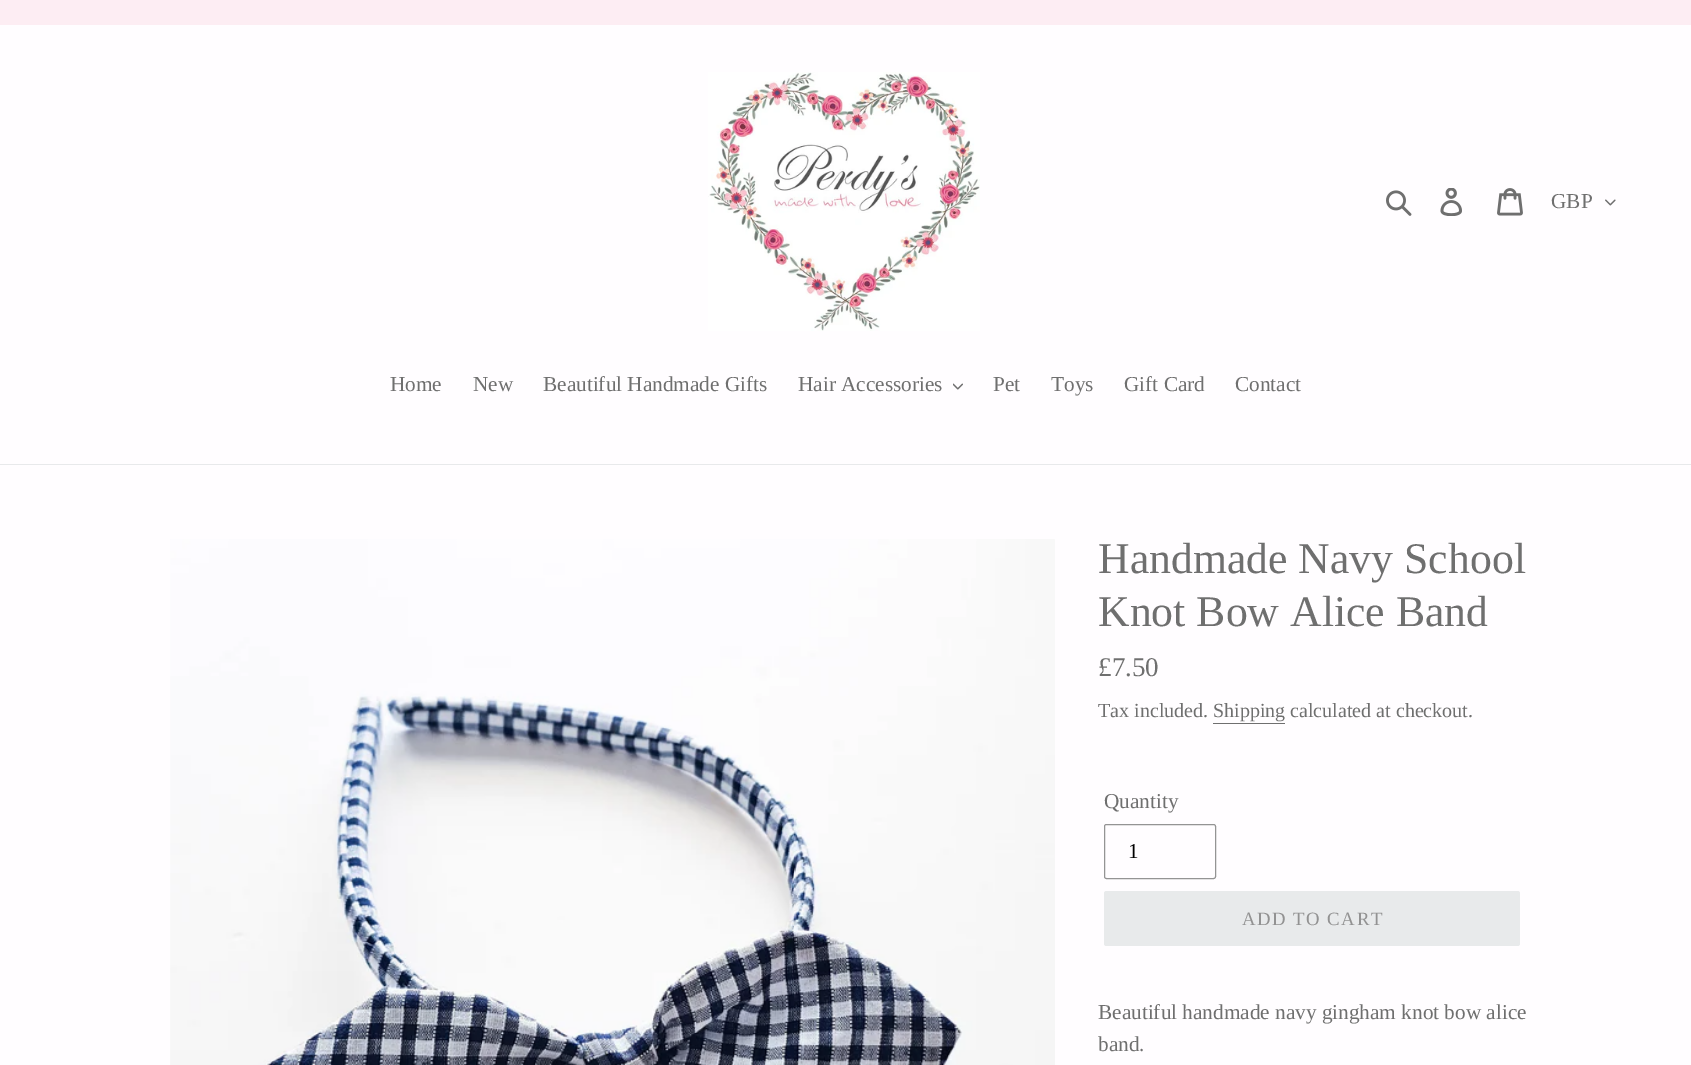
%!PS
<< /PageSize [1691 1065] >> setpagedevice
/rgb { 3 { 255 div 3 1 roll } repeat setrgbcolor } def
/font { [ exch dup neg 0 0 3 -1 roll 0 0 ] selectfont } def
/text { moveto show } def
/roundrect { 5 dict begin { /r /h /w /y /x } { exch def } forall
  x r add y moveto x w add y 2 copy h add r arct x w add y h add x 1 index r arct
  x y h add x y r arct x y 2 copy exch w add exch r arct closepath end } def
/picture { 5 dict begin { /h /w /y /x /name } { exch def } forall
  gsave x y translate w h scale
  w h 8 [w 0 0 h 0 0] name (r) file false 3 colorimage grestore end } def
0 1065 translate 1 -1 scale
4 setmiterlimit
255 253 255 rgb
0 0 1691 1065 rectfill
253 237 243 rgb
0 0 1691 25 rectfill
(img_01.rgb) 708 72 272 259 picture
(img_02.rgb) 1386 190 26 26 picture
(img_03.rgb) 1440 188 22 28 picture
(img_04.rgb) 1497 188 26 28 picture
(img_05.rgb) 1605 199 11 7 picture
232 233 235 rgb
0 464 1691 1 rectfill
(img_06.rgb) 953 383 10 7 picture
(img_07.rgb) 170 539 885 526 picture
111 111 111 rgb
1213 723 72 1 rectfill
148 148 148 rgb
1104.5 824.5 111 54 2 roundrect stroke
232 234 235 rgb
1104 891 416 55 2.5 roundrect fill
/LiberationSerif-Regular 21.25 font
111 111 111 rgb
(GBP) 1551 208 text
(Home) 390 391 text
(New) 473 391 text
(Beautiful Handmade Gifts) 543 391 text
(Hair Accessories) 798 391 text
(Pet) 993 391 text
(Toys) 1051 391 text
(Gift Card) 1124 391 text
(Contact) 1235 391 text
/LiberationSerif-Regular 43.75 font
(Handmade Navy School) 1098 573 text
(Knot Bow Alice Band) 1098 626 text
/LiberationSerif-Regular 27 font
(£7.50) 1098 676 text
/LiberationSerif-Regular 20 font
(Tax included. Shipping calculated at checkout.) 1098 717 text
/LiberationSerif-Regular 21.25 font
(Quantity) 1104 808 text
0 0 0 rgb
(1) 1128 858 text
/LiberationSerif-Regular 18.75 font
146 146 146 rgb
1242 925 moveto 1.5 0 (ADD TO CART) ashow
/LiberationSerif-Regular 21.25 font
111 111 111 rgb
(Beautiful handmade navy gingham knot bow alice) 1098 1019 text
(band.) 1098 1051 text
showpage
